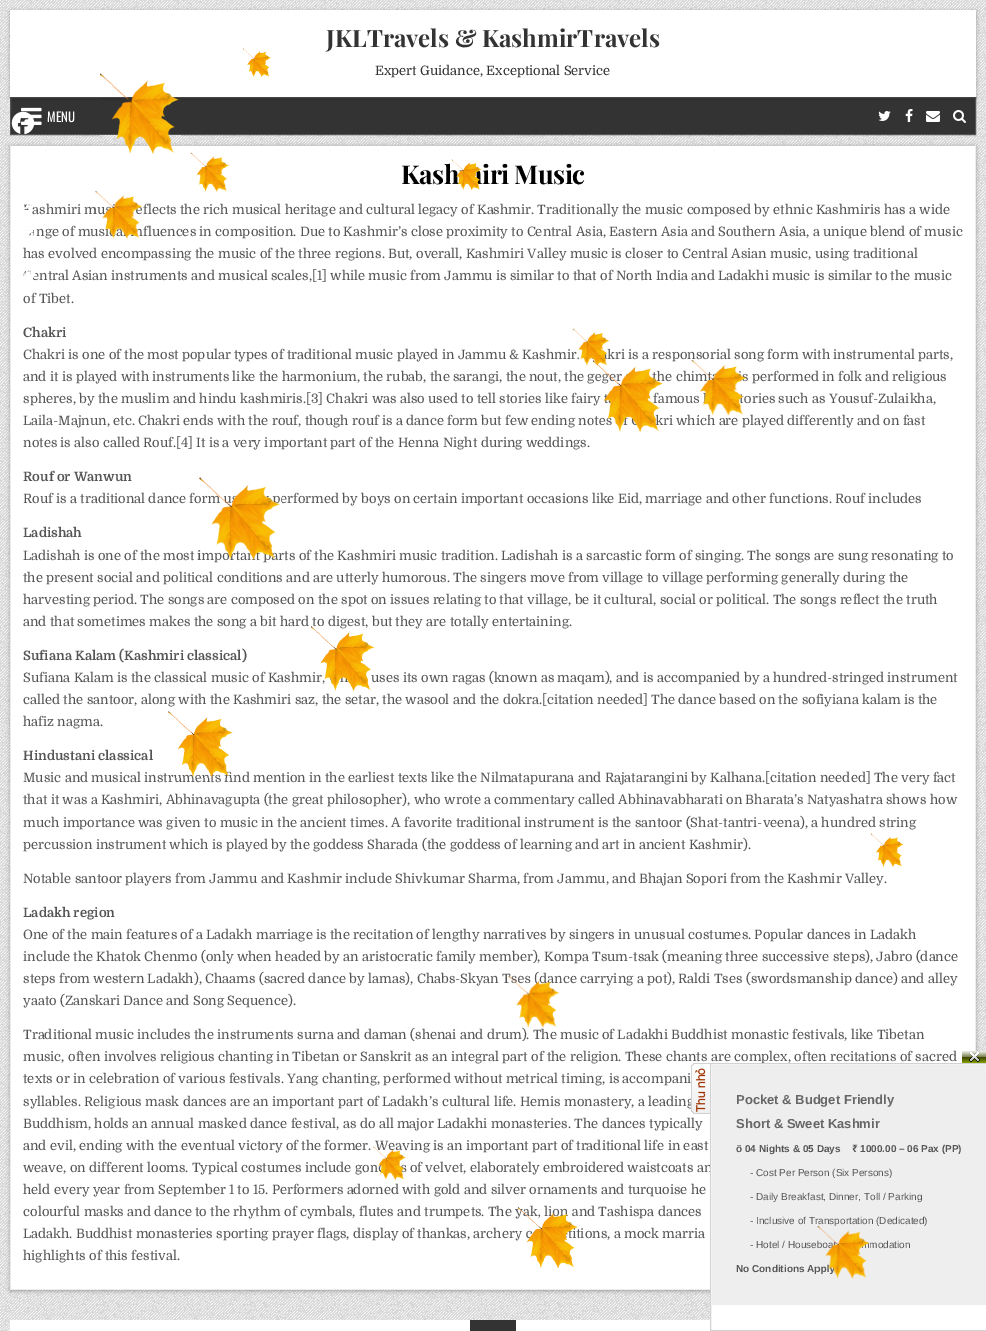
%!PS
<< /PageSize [986 1331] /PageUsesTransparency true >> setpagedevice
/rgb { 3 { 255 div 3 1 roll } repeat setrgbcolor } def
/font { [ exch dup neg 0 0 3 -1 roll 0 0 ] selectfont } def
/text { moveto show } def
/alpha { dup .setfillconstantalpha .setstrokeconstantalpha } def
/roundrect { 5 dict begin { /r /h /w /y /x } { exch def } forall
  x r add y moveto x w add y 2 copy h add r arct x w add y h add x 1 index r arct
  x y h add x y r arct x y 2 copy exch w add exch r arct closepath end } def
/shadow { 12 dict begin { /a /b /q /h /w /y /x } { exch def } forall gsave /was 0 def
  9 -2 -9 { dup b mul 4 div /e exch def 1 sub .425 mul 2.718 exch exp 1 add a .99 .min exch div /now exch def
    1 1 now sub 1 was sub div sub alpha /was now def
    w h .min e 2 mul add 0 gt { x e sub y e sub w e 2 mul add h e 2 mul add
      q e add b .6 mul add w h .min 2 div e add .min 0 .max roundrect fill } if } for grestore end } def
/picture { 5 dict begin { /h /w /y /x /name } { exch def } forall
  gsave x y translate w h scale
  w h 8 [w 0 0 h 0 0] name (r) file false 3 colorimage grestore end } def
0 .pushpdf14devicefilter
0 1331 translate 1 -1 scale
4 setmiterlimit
255 255 255 rgb
0 0 986 1331 rectfill
(img_01.rgb) 0 0 986 1331 picture
51 51 51 rgb
10.5 97.5 moveto 965 0 rlineto 0 37 rlineto -965 0 rlineto closepath gsave fill grestore
85 85 85 rgb
stroke
0 0 0 rgb
10 11 966 87 0 2 0.3 shadow
255 255 255 rgb
10 10 966 87 rectfill
(img_02.rgb) 21 107 21 18 picture
(img_03.rgb) 878 111 13 10 picture
(img_04.rgb) 905 109 8 13 picture
(img_05.rgb) 926 111 14 11 picture
(img_06.rgb) 953 110 13 13 picture
0 0 0 rgb
10 146 966 1145 0 2 0.3 shadow
255 255 255 rgb
11 146 964 1143 rectfill
204 204 204 rgb
10 145 966 1 rectfill
236 236 236 rgb
975 145 1 906 rectfill
10 1289 700 1 rectfill
10 145 1 1145 rectfill
255 255 255 rgb
10 1320 700 11 rectfill
51 51 51 rgb
470 1320 46 11 rectfill
(img_07.rgb) 243 48 29 29 picture
(img_08.rgb) 11 111 24 24 picture
(img_09.rgb) 24 204 8 6 picture
(img_10.rgb) 23 230 11 7 picture
(img_12.rgb) 100 73 81 82 picture
(img_13.rgb) 190 152 40 40 picture
(img_22.rgb) 870 833 34 35 picture
(img_25.rgb) 962 1051 24 12 picture
/PlayfairDisplay-Bold 24 font
(JKLTravels & KashmirTravels) 326 47 text
/Domine-Regular 13 font
(Expert Guidance, Exceptional Service) 375 75 text
/Oswald-Regular 13 font
255 255 255 rgb
(MENU) 47 122 text
/PlayfairDisplay-Bold 26 font
0 0 0 rgb
401 184 moveto -0.5 0 (Kashmiri Music) ashow
/Domine-Regular 13 font
85 85 85 rgb
(ashmiri mu) 32 214 text
(flects the rich musical heritage and cultural legacy of Kashmir. Traditionally the music composed by ethnic Kashmiris has a wide) 143 214 text
(nge of mus) 36 236 text
(a) 116 236 text
(fluences in composition. Due to Kashmir’s close proximity to Central Asia, Eastern Asia and Southern Asia, a unique blend of music) 143 236 text
(has evolved encompassing the music of the three regions. But, overall, Kashmiri Valley music is closer to Central Asian music, using traditional) 23 258 text
(entral Asian instruments and musical scales,[1] while music from Jammu is similar to that of North India and Ladakhi music is similar to the music) 32 280 text
(of Tibet.) 23 303 text
/Domine-Bold 13 font
(Chakri) 23 337 text
/Domine-Regular 13 font
(Chakri is one of the most popular types of traditional music played in Jammu & Kashmir.) 23 359 text
(kri is a responsorial song form with instrumental parts,) 607 359 text
(and it is played with instruments like the harmonium, the rubab, the sarangi, the nout, the geger) 23 381 text
(he chim) 657 381 text
(s performed in folk and religious) 742 381 text
(spheres, by the muslim and hindu kashmiris.[3] Chakri was also used to tell stories like fairy) 23 403 text
(famous) 653 403 text
(ories such as Yousuf-Zulaikha,) 744 403 text
(Laila-Majnun, etc. Chakri ends with the rouf, though rouf is a dance form but few ending notes of) 23 425 text
(kri which are played differently and on fast) 655 425 text
(notes is also called Rouf.[4] It is a very important part of the Henna Night during weddings.) 23 447 text
/Domine-Bold 13 font
(Rouf or Wanwun) 23 481 text
/Domine-Regular 13 font
(Rouf is a traditional dance form u) 23 503 text
(erformed by boys on certain important occasions like Eid, marriage and other functions. Rouf includes) 280 503 text
/Domine-Bold 13 font
(Ladishah) 23 537 text
/Domine-Regular 13 font
(Ladishah is one of the most important parts of the Kashmiri music tradition. Ladishah is a sarcastic form of singing. The songs are sung resonating to) 23 560 text
(the present social and political conditions and are utterly humorous. The singers move from village to village performing generally during the) 23 582 text
(harvesting period. The songs are composed on the spot on issues relating to that village, be it cultural, social or political. The songs reflect the truth) 23 604 text
(and that sometimes makes the song a bit hard to digest, but they are totally entertaining.) 23 626 text
/Domine-Bold 13 font
(Sufiana Kalam \(Kashmiri classical\)) 23 660 text
/Domine-Regular 13 font
(Sufiana Kalam is the classical music of Kashmir,) 23 682 text
(uses its own ragas \(known as maqam\), and is accompanied by a hundred-stringed instrument) 371 682 text
(called the santoor, along with the Kashmiri saz, the setar, the wasool and the dokra.[citation needed] The dance based on the sofiyiana kalam is the) 23 704 text
(hafiz nagma.) 23 726 text
/Domine-Bold 13 font
(Hindustani classical) 23 760 text
/Domine-Regular 13 font
(Music and musical instruments find mention in the earliest texts like the Nilmatapurana and Rajatarangini by Kalhana.[citation needed] The very fact) 23 782 text
(that it was a Kashmiri, Abhinavagupta \(the great philosopher\), who wrote a commentary called Abhinavabharati on Bharata’s Natyashatra shows how) 23 804 text
(much importance was given to music in the ancient times. A favorite traditional instrument is the santoor \(Shat-tantri-veena\), a hundred string) 23 827 text
(percussion instrument which is played by the goddess Sharada \(the goddess of learning and art in ancient Kashmir\).) 23 849 text
(Notable santoor players from Jammu and Kashmir include Shivkumar Sharma, from Jammu, and Bhajan Sopori from the Kashmir Valley.) 23 883 text
/Domine-Bold 13 font
(Ladakh region) 23 917 text
/Domine-Regular 13 font
(One of the main features of a Ladakh marriage is the recitation of lengthy narratives by singers in unusual costumes. Popular dances in Ladakh) 23 939 text
(include the Khatok Chenmo \(only when headed by an aristocratic family member\), Kompa Tsum-tsak \(meaning three successive steps\), Jabro \(dance) 23 961 text
(steps from western Ladakh\), Chaams \(sacred dance by lamas\), Chabs-Skyan Tses \(dance carrying a pot\), Raldi Tses \(swordsmanship dance\) and alley) 23 983 text
(yaato \(Zanskari Dance and Song Sequence\).) 23 1005 text
(Traditional music includes the instruments surna and daman \(shenai and drum\). The music of Ladakhi Buddhist monastic festivals, like Tibetan) 23 1039 text
(music, often involves religious chanting in Tibetan or Sanskrit as an integral part of the religion. These chants are complex, often recitations of sacred) 23 1061 text
(texts or in celebration of various festivals. Yang chanting, performed without metrical timing, is accompani) 23 1083 text
(syllables. Religious mask dances are an important part of Ladakh’s cultural life. Hemis monastery, a leading) 23 1106 text
(Buddhism, holds an annual masked dance festival, as do all major Ladakhi monasteries. The dances typically) 23 1128 text
(and evil, ending with the eventual victory of the former. Weaving is an important part of traditional life in east) 23 1150 text
(weave, on different looms. Typical costumes include gonc) 23 1172 text
(s of velvet, elaborately embroidered waistcoats an) 400 1172 text
(held every year from September 1 to 15. Performers adorned with gold and silver ornaments and turquoise he) 23 1194 text
(colourful masks and dance to the rhythm of cymbals, flutes and trumpets. The yak, lion and Tashispa dances) 23 1216 text
(Ladakh. Buddhist monasteries sporting prayer flags, display of thankas, archery) 23 1238 text
(itions, a mock marria) 572 1238 text
(highlights of this festival.) 23 1260 text
(img_11.rgb) 23 270 13 11 picture
(img_14.rgb) 451 159 31 31 picture
(img_15.rgb) 95 190 48 49 picture
(img_17.rgb) 592 360 73 73 picture
(img_16.rgb) 572 328 38 39 picture
(img_18.rgb) 691 360 57 56 picture
(img_19.rgb) 199 477 83 84 picture
(img_20.rgb) 311 626 65 66 picture
(img_21.rgb) 168 711 67 67 picture
(img_23.rgb) 508 976 53 52 picture
(img_24.rgb) 373 1146 34 35 picture
(img_26.rgb) 691 1063 19 51 picture
255 255 255 rgb
710.5 1063.5 moveto 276 0 rlineto 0 267 rlineto -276 0 rlineto closepath gsave fill grestore
210 210 210 rgb
stroke
238 238 238 rgb
712 1065 274 240 rectfill
/LiberationSans-Bold 13 font
102 102 102 rgb
(Pocket & Budget Friendly) 736 1104 text
(Short & Sweet Kashmir) 736 1128 text
/LiberationSans-Bold 10 font
85 85 85 rgb
(ö 04 Nights & 05 Days) 736 1152 text
/NotoSans-Bold 10 font
(₹) 852 1152 text
/LiberationSans-Bold 10 font
(1000.00 – 06 Pax \(PP\)) 860 1152 text
/LiberationSans-Regular 10 font
(- Cost Per Person \(Six Persons\)) 750 1176 text
(- Daily Breakfast, Dinner, Toll / Parking) 750 1200 text
(- Inclusive of Transportation \(Dedicated\)) 750 1224 text
(- Hotel / Houseboat) 750 1248 text
(mmodation) 861 1248 text
/LiberationSans-Bold 10 font
(No Conditions Apply) 736 1272 text
(img_27.rgb) 517 1207 62 62 picture
(img_28.rgb) 817 1226 53 53 picture
.poppdf14devicefilter showpage
